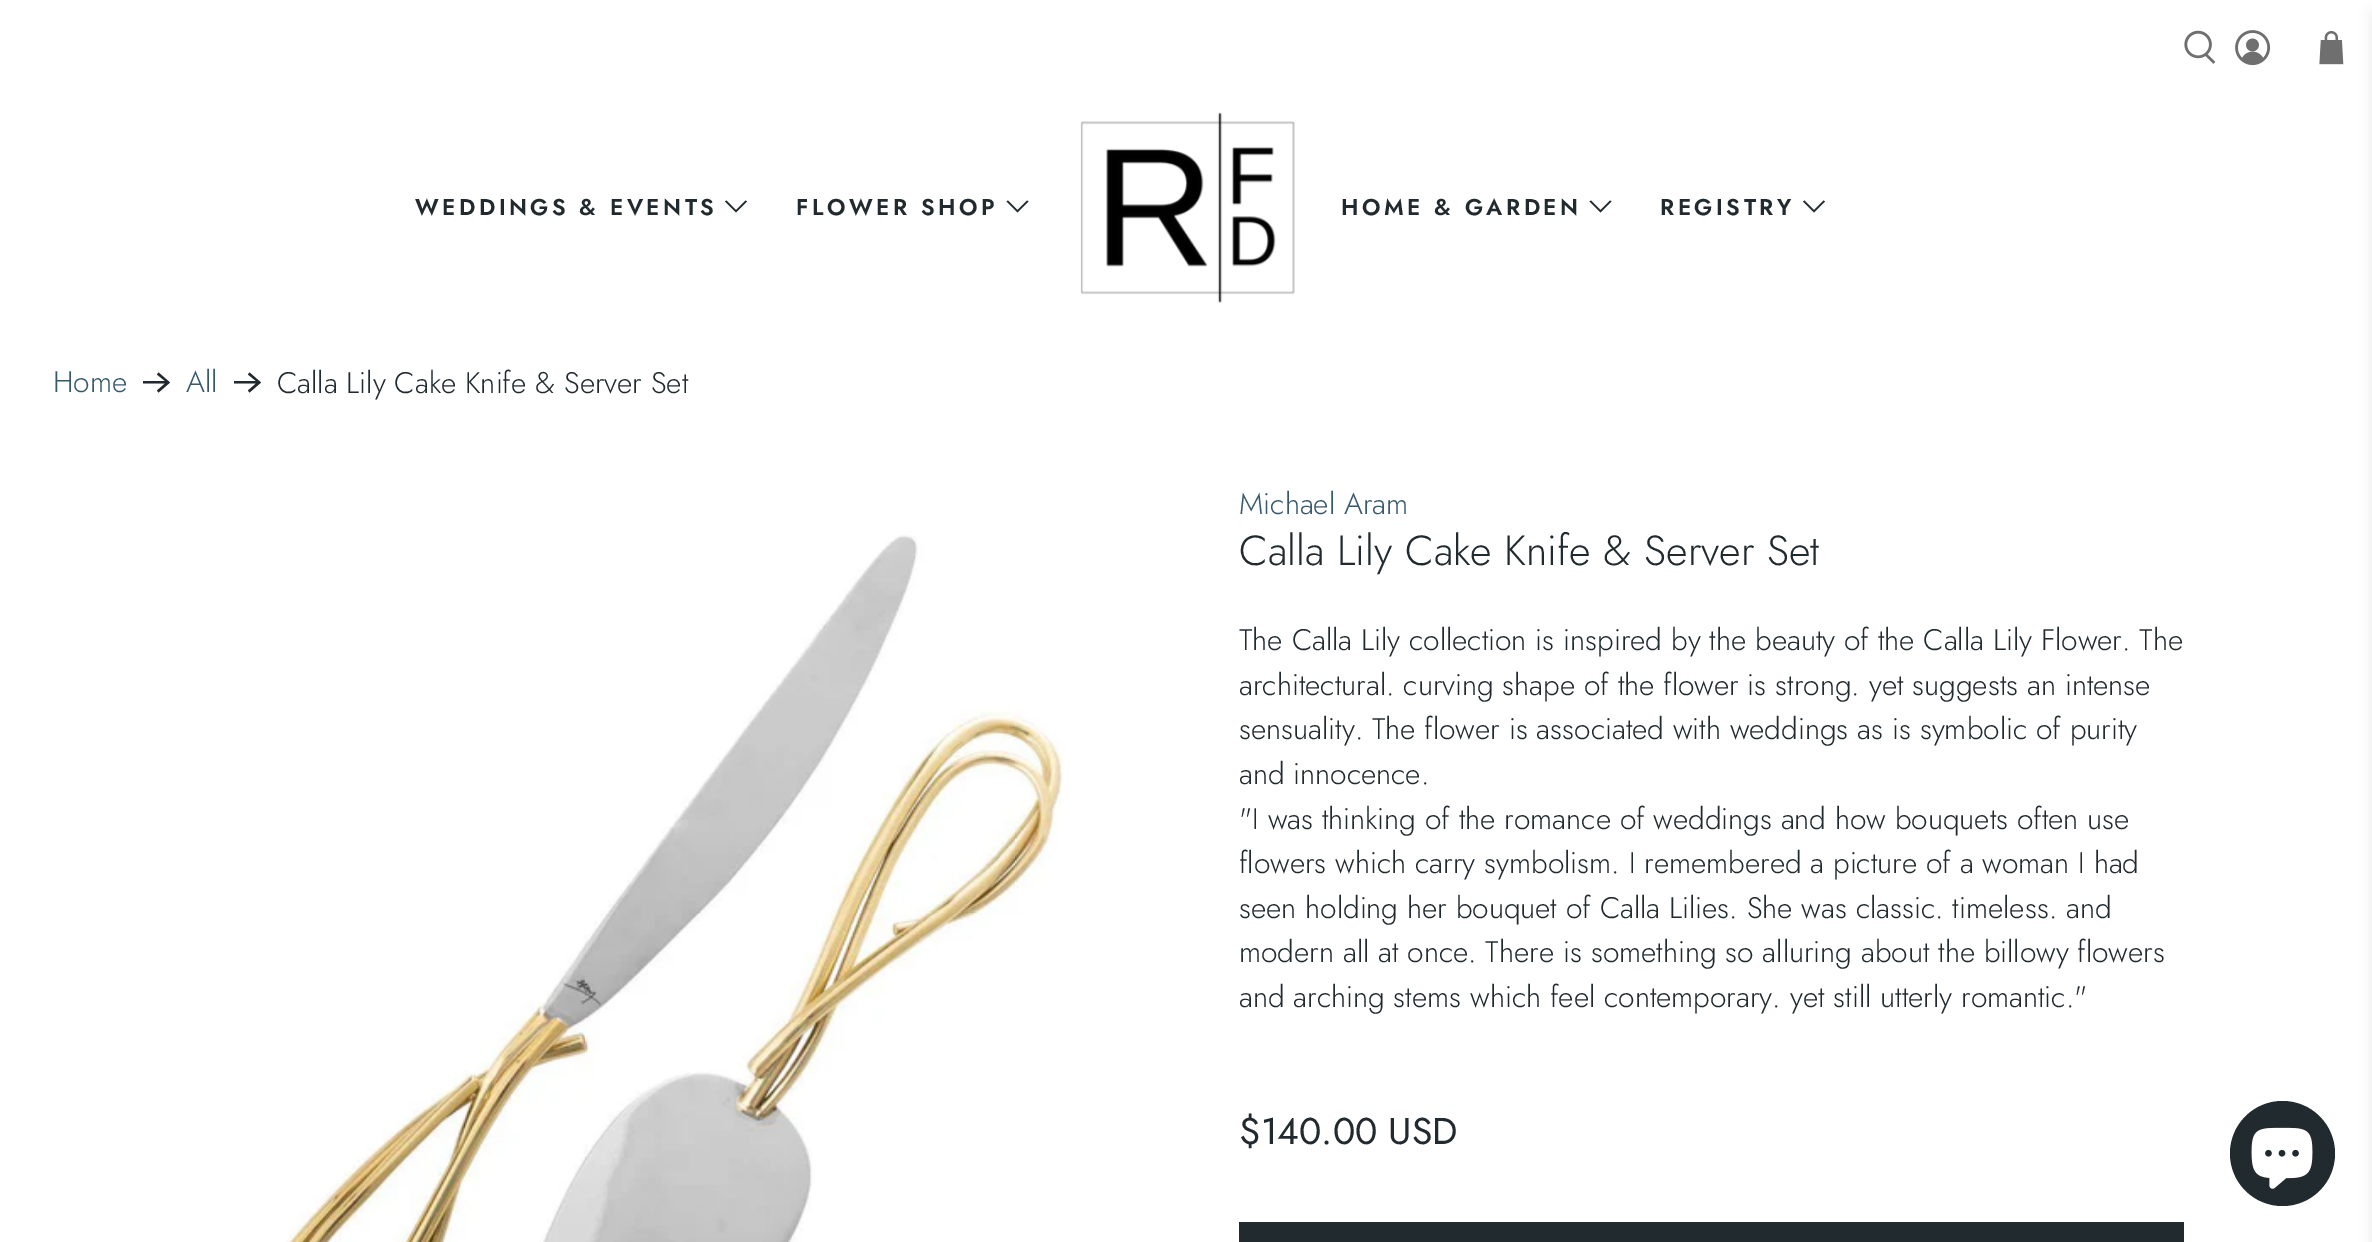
%!PS
<< /PageSize [2372 1242] /PageUsesTransparency true >> setpagedevice
/rgb { 3 { 255 div 3 1 roll } repeat setrgbcolor } def
/font { [ exch dup neg 0 0 3 -1 roll 0 0 ] selectfont } def
/text { moveto show } def
/alpha { dup .setfillconstantalpha .setstrokeconstantalpha } def
/circle { newpath 0 360 arc closepath } def
/roundrect { 5 dict begin { /r /h /w /y /x } { exch def } forall
  x r add y moveto x w add y 2 copy h add r arct x w add y h add x 1 index r arct
  x y h add x y r arct x y 2 copy exch w add exch r arct closepath end } def
/shadow { 12 dict begin { /a /b /q /h /w /y /x } { exch def } forall gsave /was 0 def
  9 -2 -9 { dup b mul 4 div /e exch def 1 sub .425 mul 2.718 exch exp 1 add a .99 .min exch div /now exch def
    1 1 now sub 1 was sub div sub alpha /was now def
    w h .min e 2 mul add 0 gt { x e sub y e sub w e 2 mul add h e 2 mul add
      q e add b .6 mul add w h .min 2 div e add .min 0 .max roundrect fill } if } for grestore end } def
/picture { 5 dict begin { /h /w /y /x /name } { exch def } forall
  gsave x y translate w h scale
  w h 8 [w 0 0 h 0 0] name (r) file false 3 colorimage grestore end } def
0 .pushpdf14devicefilter
0 1242 translate 1 -1 scale
4 setmiterlimit
255 255 255 rgb
0 0 2372 1242 rectfill
(img_01.rgb) 2184 30 32 34 picture
(img_02.rgb) 2235 30 36 36 picture
(img_03.rgb) 2319 31 25 34 picture
10 10 10 rgb
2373 14 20 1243 0 7 0.1 shadow
33 42 47 rgb
736 212.5 moveto -11 -11 rlineto 1.5 -1 rlineto 9.5 9.5 rlineto 9.5 -9.5 rlineto 1.5 1 rlineto closepath fill
1017.5 212.5 moveto -11 -11 rlineto 1.5 -1 rlineto 9.5 9.5 rlineto 9.5 -9.5 rlineto 1.5 1 rlineto closepath fill
(img_04.rgb) 1080 112 215 191 picture
1600.5 212.5 moveto -11 -11 rlineto 1.5 -1 rlineto 9.5 9.5 rlineto 9.5 -9.5 rlineto 1.5 1 rlineto closepath fill
1814 212.5 moveto -11 -11 rlineto 1.5 -1 rlineto 9.5 9.5 rlineto 9.5 -9.5 rlineto 1.5 1 rlineto closepath fill
158.5 372.5 moveto -1.5 2 rlineto 8 6.5 rlineto -22 0 rlineto 0 2.5 rlineto 22 0 rlineto -8 7 rlineto 1.5 2 rlineto 11.5 -10 rlineto closepath fill
249.5 372.5 moveto -1.5 2 rlineto 8 6.5 rlineto -22 0 rlineto 0 2.5 rlineto 22 0 rlineto -8 7 rlineto 1.5 2 rlineto 11.5 -10 rlineto closepath fill
(img_05.rgb) 286 535 777 707 picture
1239 1222 945 20 rectfill
2282.5 1153.5 52.5 circle fill
(img_06.rgb) 2251 1127 62 62 picture
/Jost-SemiBold 22.75 font
415 215 moveto 3.5 0 (WEDDINGS & EVENTS) ashow
796 215 moveto 3.5 0 (FLOWER SHOP) ashow
1341 215 moveto 3.5 0 (HOME & GARDEN) ashow
1660 215 moveto 3.5 0 (REGISTRY) ashow
/Jost-Light 29.75 font
54 89 109 rgb
(Home) 53 392 text
(All) 186 392 text
33 42 47 rgb
(Calla Lily Cake Knife & Server Set) 277 393 text
54 89 109 rgb
(Michael Aram) 1239 514 text
/Jost-Light 42 font
33 42 47 rgb
(Calla Lily Cake Knife & Server Set) 1239 565 text
/Jost-Light 29.75 font
(The Calla Lily collection is inspired by the beauty of the Calla Lily Flower. The) 1239 650 text
(architectural. curving shape of the flower is strong. yet suggests an intense) 1239 695 text
(sensuality. The flower is associated with weddings as is symbolic of purity) 1239 739 text
(and innocence.) 1239 784 text
("I was thinking of the romance of weddings and how bouquets often use) 1239 829 text
(flowers which carry symbolism. I remembered a picture of a woman I had) 1239 873 text
(seen holding her bouquet of Calla Lilies. She was classic. timeless. and) 1239 918 text
(modern all at once. There is something so alluring about the billowy flowers) 1239 962 text
(and arching stems which feel contemporary. yet still utterly romantic.") 1239 1007 text
/Jost-Regular 37.25 font
($140.00 USD) 1239 1144 text
.poppdf14devicefilter showpage
